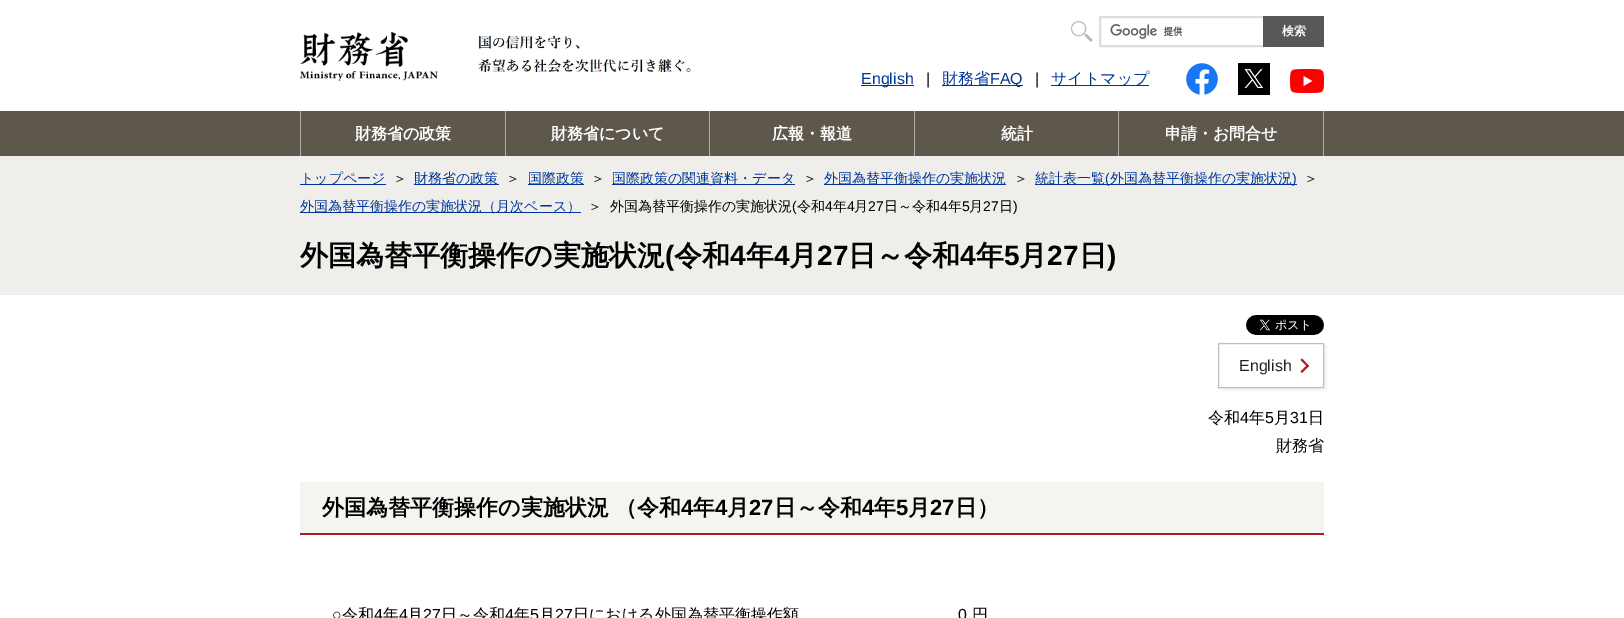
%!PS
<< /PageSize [1624 618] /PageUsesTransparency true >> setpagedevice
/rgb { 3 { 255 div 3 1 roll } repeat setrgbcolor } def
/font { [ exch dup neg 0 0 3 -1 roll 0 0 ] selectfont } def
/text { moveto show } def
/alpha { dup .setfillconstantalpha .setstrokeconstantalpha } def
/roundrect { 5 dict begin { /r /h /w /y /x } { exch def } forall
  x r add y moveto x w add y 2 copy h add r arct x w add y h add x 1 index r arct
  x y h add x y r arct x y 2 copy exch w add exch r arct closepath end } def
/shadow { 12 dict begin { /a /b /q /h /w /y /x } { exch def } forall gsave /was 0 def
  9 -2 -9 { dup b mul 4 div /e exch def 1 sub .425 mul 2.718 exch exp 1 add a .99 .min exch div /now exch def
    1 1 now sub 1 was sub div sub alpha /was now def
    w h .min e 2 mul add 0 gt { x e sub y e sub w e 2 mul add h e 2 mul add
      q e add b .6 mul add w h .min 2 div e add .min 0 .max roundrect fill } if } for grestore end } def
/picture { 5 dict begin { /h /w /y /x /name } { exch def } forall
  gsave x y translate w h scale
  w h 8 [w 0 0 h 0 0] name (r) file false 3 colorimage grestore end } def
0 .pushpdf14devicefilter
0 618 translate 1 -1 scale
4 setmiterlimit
255 255 255 rgb
0 0 1624 618 rectfill
(img_01.rgb) 300 32 108 35 picture
(img_02.rgb) 300 71 138 10 picture
(img_03.rgb) 478 36 213 36 picture
(img_04.rgb) 1071 21 22 21 picture
(img_05.rgb) 1110 24 73 15 picture
221 221 221 rgb
2 setlinewidth
1100 17 166 29 rectstroke
88 88 88 rgb
1263 16 61 31 rectfill
0 53 152 rgb
861 85 53 1 rectfill
942 85 81 1 rectfill
1051 85 98 1 rectfill
(img_06.rgb) 1186 63 32 32 picture
(img_07.rgb) 1238 63 32 32 picture
(img_08.rgb) 1290 69 34 24 picture
94 87 76 rgb
0 111 1624 45 rectfill
175 173 169 rgb
300 111 1 45 rectfill
505 111 1 45 rectfill
709 111 1 45 rectfill
914 111 1 45 rectfill
1323 111 1 45 rectfill
1118 111 1 45 rectfill
239 238 235 rgb
0 156 1624 139 rectfill
0 53 152 rgb
300 184 86 1 rectfill
414 184 85 1 rectfill
528 184 56 1 rectfill
612 184 183 1 rectfill
824 184 182 1 rectfill
1035 184 262 1 rectfill
300 212 281 1 rectfill
(img_09.rgb) 1246 315 78 20 picture
gsave
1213 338 moveto 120 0 rlineto 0 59 rlineto -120 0 rlineto closepath 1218 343 moveto 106 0 rlineto 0 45 rlineto -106 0 rlineto closepath eoclip newpath
0 0 0 rgb
1220 345 106 45 0 2 0.06 shadow
grestore
190 190 190 rgb
1 setlinewidth
1218.5 343.5 105 44 rectstroke
179 24 34 rgb
1302 358.5 moveto 7 7.5 rlineto -1.5 1 rlineto -7 -7 rlineto closepath fill
1307.5 364.5 moveto 1.5 1.5 rlineto -7 7 rlineto -1.5 -1.5 rlineto closepath fill
245 244 240 rgb
300 482 1024 51 rectfill
179 24 34 rgb
300 533 1024 2 rectfill
/WenQuanYiZenHei-Bold 12 font
255 255 255 rgb
(検索) 1282 35 text
/LiberationSans-Regular 16 font
0 53 152 rgb
(English) 861 84 text
0 0 0 rgb
(|) 926 84 text
/WenQuanYiZenHei-Medium 16 font
0 53 152 rgb
(財務省) 942 84 text
/LiberationSans-Regular 16 font
(FAQ) 990 84 text
0 0 0 rgb
(|) 1035 84 text
/WenQuanYiZenHei-Medium 16 font
0 53 152 rgb
(サイトマップ) 1051 84 text
/WenQuanYiZenHei-Bold 16 font
255 255 255 rgb
(財務省の政策) 355 139 text
(財務省について) 551 139 text
(広報・報道) 772 139 text
(統計) 1001 139 text
(申請・お問合せ) 1165 139 text
/WenQuanYiZenHei-Medium 14 font
0 53 152 rgb
(トップページ) 300 183 text
0 0 0 rgb
(＞) 393 183 text
0 53 152 rgb
(財務省の政策) 414 183 text
0 0 0 rgb
(＞) 506 183 text
0 53 152 rgb
(国際政策) 528 183 text
0 0 0 rgb
(＞) 591 183 text
0 53 152 rgb
(国際政策の関連資料・データ) 612 183 text
0 0 0 rgb
(＞) 803 183 text
0 53 152 rgb
(外国為替平衡操作の実施状況) 824 183 text
0 0 0 rgb
(＞) 1014 183 text
0 53 152 rgb
(統計表一覧) 1035 183 text
/LiberationSans-Regular 14 font
(\() 1105 183 text
/WenQuanYiZenHei-Medium 14 font
(外国為替平衡操作の実施状況) 1110 183 text
/LiberationSans-Regular 14 font
(\)) 1292 183 text
/WenQuanYiZenHei-Medium 14 font
0 0 0 rgb
(＞) 1304 183 text
0 53 152 rgb
(外国為替平衡操作の実施状況（月次ベース）) 300 211 text
0 0 0 rgb
(＞) 588 211 text
(外国為替平衡操作の実施状況) 610 211 text
/LiberationSans-Regular 14 font
(\() 792 211 text
/WenQuanYiZenHei-Medium 14 font
(令和) 797 211 text
/LiberationSans-Regular 14 font
(4) 825 211 text
/WenQuanYiZenHei-Medium 14 font
(年) 833 211 text
/LiberationSans-Regular 14 font
(4) 847 211 text
/WenQuanYiZenHei-Medium 14 font
(月) 854 211 text
/LiberationSans-Regular 14 font
(27) 868 211 text
/WenQuanYiZenHei-Medium 14 font
(日～令和) 884 211 text
/LiberationSans-Regular 14 font
(4) 940 211 text
/WenQuanYiZenHei-Medium 14 font
(年) 948 211 text
/LiberationSans-Regular 14 font
(5) 962 211 text
/WenQuanYiZenHei-Medium 14 font
(月) 969 211 text
/LiberationSans-Regular 14 font
(27) 983 211 text
/WenQuanYiZenHei-Medium 14 font
(日) 999 211 text
/LiberationSans-Regular 14 font
(\)) 1013 211 text
/WenQuanYiZenHei-Bold 28 font
(外国為替平衡操作の実施状況) 300 265 text
/LiberationSans-Bold 28 font
(\() 665 265 text
/WenQuanYiZenHei-Bold 28 font
(令和) 674 265 text
/LiberationSans-Bold 28 font
(4) 730 265 text
/WenQuanYiZenHei-Bold 28 font
(年) 746 265 text
/LiberationSans-Bold 28 font
(4) 774 265 text
/WenQuanYiZenHei-Bold 28 font
(月) 789 265 text
/LiberationSans-Bold 28 font
(27) 817 265 text
/WenQuanYiZenHei-Bold 28 font
(日～令和) 848 265 text
/LiberationSans-Bold 28 font
(4) 960 265 text
/WenQuanYiZenHei-Bold 28 font
(年) 976 265 text
/LiberationSans-Bold 28 font
(5) 1004 265 text
/WenQuanYiZenHei-Bold 28 font
(月) 1019 265 text
/LiberationSans-Bold 28 font
(27) 1047 265 text
/WenQuanYiZenHei-Bold 28 font
(日) 1079 265 text
/LiberationSans-Bold 28 font
(\)) 1107 265 text
/LiberationSans-Regular 16 font
34 34 34 rgb
(English) 1239 371 text
/WenQuanYiZenHei-Medium 16 font
0 0 0 rgb
(令和) 1208 423 text
/LiberationSans-Regular 16 font
(4) 1240 423 text
/WenQuanYiZenHei-Medium 16 font
(年) 1249 423 text
/LiberationSans-Regular 16 font
(5) 1265 423 text
/WenQuanYiZenHei-Medium 16 font
(月) 1274 423 text
/LiberationSans-Regular 16 font
(31) 1290 423 text
/WenQuanYiZenHei-Medium 16 font
(日) 1308 423 text
(財務省) 1276 451 text
/WenQuanYiZenHei-Bold 22 font
(外国為替平衡操作の実施状況 （令和) 322 515 text
/LiberationSans-Bold 22 font
(4) 681 515 text
/WenQuanYiZenHei-Bold 22 font
(年) 693 515 text
/LiberationSans-Bold 22 font
(4) 715 515 text
/WenQuanYiZenHei-Bold 22 font
(月) 727 515 text
/LiberationSans-Bold 22 font
(27) 749 515 text
/WenQuanYiZenHei-Bold 22 font
(日～令和) 774 515 text
/LiberationSans-Bold 22 font
(4) 862 515 text
/WenQuanYiZenHei-Bold 22 font
(年) 874 515 text
/LiberationSans-Bold 22 font
(5) 896 515 text
/WenQuanYiZenHei-Bold 22 font
(月) 908 515 text
/LiberationSans-Bold 22 font
(27) 930 515 text
/WenQuanYiZenHei-Bold 22 font
(日）) 955 515 text
/LiberationSans-Regular 16 font
(○) 332 620 text
/WenQuanYiZenHei-Medium 16 font
(令和) 342 620 text
/LiberationSans-Regular 16 font
(4) 374 620 text
/WenQuanYiZenHei-Medium 16 font
(年) 383 620 text
/LiberationSans-Regular 16 font
(4) 399 620 text
/WenQuanYiZenHei-Medium 16 font
(月) 407 620 text
/LiberationSans-Regular 16 font
(27) 423 620 text
/WenQuanYiZenHei-Medium 16 font
(日～令和) 441 620 text
/LiberationSans-Regular 16 font
(4) 505 620 text
/WenQuanYiZenHei-Medium 16 font
(年) 514 620 text
/LiberationSans-Regular 16 font
(5) 530 620 text
/WenQuanYiZenHei-Medium 16 font
(月) 539 620 text
/LiberationSans-Regular 16 font
(27) 555 620 text
/WenQuanYiZenHei-Medium 16 font
(日における外国為替平衡操作額) 573 620 text
/LiberationSans-Regular 16 font
(0) 958 620 text
/WenQuanYiZenHei-Medium 16 font
(円) 972 620 text
.poppdf14devicefilter showpage
